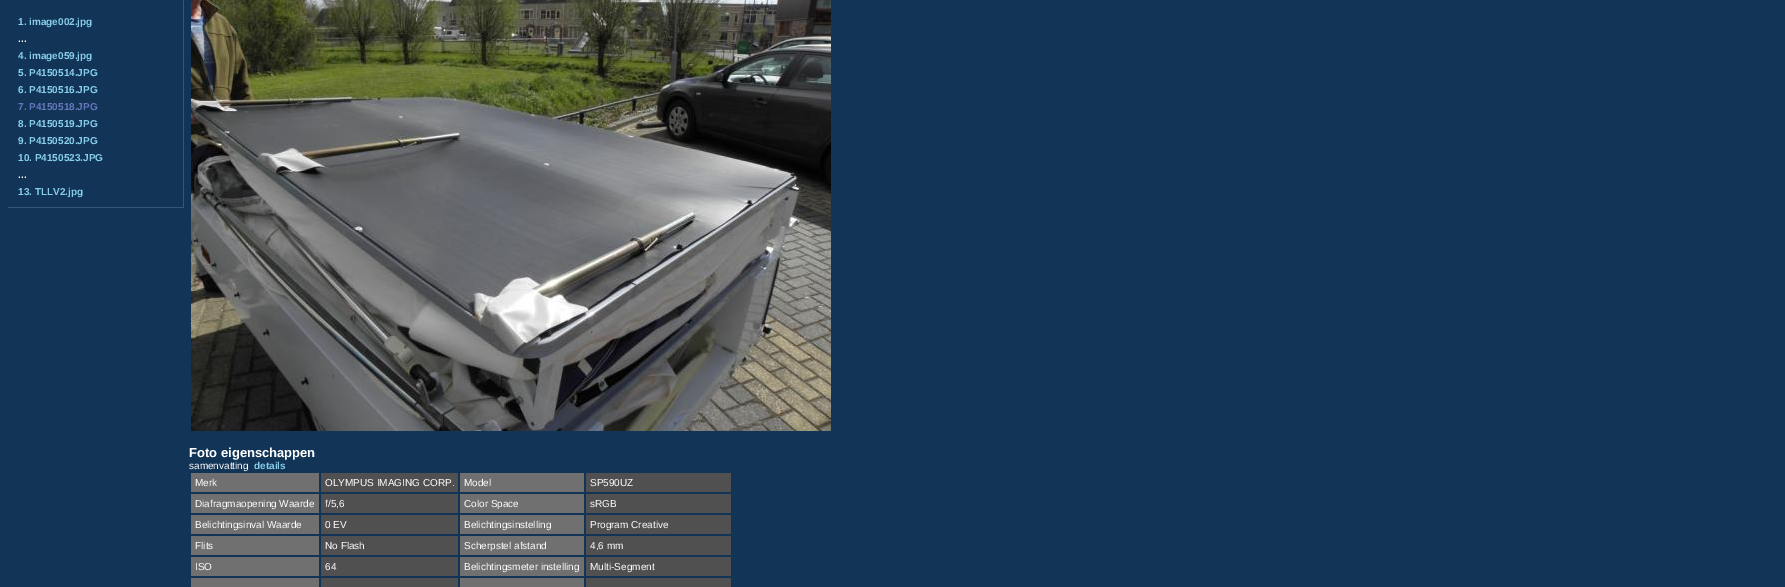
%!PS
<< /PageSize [1785 587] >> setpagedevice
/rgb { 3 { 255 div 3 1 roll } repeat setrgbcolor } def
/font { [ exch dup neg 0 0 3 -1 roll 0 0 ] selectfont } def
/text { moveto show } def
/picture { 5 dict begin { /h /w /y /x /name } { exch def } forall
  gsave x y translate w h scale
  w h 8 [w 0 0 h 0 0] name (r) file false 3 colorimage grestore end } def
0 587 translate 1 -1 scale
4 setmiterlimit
18 52 86 rgb
0 0 1785 587 rectfill
52 86 120 rgb
183 0 1 208 rectfill
8 207 175 1 rectfill
(img_01.rgb) 191 0 640 431 picture
112 112 112 rgb
191 473 128 19 rectfill
80 80 80 rgb
321 473 137 19 rectfill
112 112 112 rgb
460 473 124 19 rectfill
80 80 80 rgb
586 473 145 19 rectfill
112 112 112 rgb
191 494 128 19 rectfill
80 80 80 rgb
321 494 137 19 rectfill
112 112 112 rgb
460 494 124 19 rectfill
80 80 80 rgb
586 494 145 19 rectfill
112 112 112 rgb
191 515 128 19 rectfill
80 80 80 rgb
321 515 137 19 rectfill
112 112 112 rgb
460 515 124 19 rectfill
80 80 80 rgb
586 515 145 19 rectfill
112 112 112 rgb
191 536 128 19 rectfill
80 80 80 rgb
321 536 137 19 rectfill
112 112 112 rgb
460 536 124 19 rectfill
80 80 80 rgb
586 536 145 19 rectfill
112 112 112 rgb
191 557 128 19 rectfill
80 80 80 rgb
321 557 137 19 rectfill
112 112 112 rgb
460 557 124 19 rectfill
80 80 80 rgb
586 557 145 19 rectfill
112 112 112 rgb
191 578 128 9 rectfill
80 80 80 rgb
321 578 137 9 rectfill
112 112 112 rgb
460 578 124 9 rectfill
80 80 80 rgb
586 578 145 9 rectfill
/LiberationSans-Bold 10 font
135 206 235 rgb
(1. image002.jpg) 18 25 text
255 255 255 rgb
(...) 18 42 text
135 206 235 rgb
(4. image059.jpg) 18 59 text
(5. P4150514.JPG) 18 76 text
(6. P4150516.JPG) 18 93 text
102 119 187 rgb
(7. P4150518.JPG) 18 110 text
135 206 235 rgb
(8. P4150519.JPG) 18 127 text
(9. P4150520.JPG) 18 144 text
(10. P4150523.JPG) 18 161 text
255 255 255 rgb
(...) 18 178 text
135 206 235 rgb
(13. TLLV2.jpg) 18 195 text
/LiberationSans-Bold 13 font
255 255 255 rgb
(Foto eigenschappen) 189 457 text
/LiberationSans-Regular 10 font
(samenvatting) 189 469 text
/LiberationSans-Bold 10 font
135 206 235 rgb
(details) 254 469 text
/LiberationSans-Regular 10 font
255 255 255 rgb
(Merk) 195 486 text
(OLYMPUS IMAGING CORP.) 325 486 text
(Model) 464 486 text
(SP590UZ) 590 486 text
(Diafragmaopening Waarde) 195 507 text
(f/5,6) 325 507 text
(Color Space) 464 507 text
(sRGB) 590 507 text
(Belichtingsinval Waarde) 195 528 text
(0 EV) 325 528 text
(Belichtingsinstelling) 464 528 text
(Program Creative) 590 528 text
(Flits) 195 549 text
(No Flash) 325 549 text
(Scherpstel afstand) 464 549 text
(4,6 mm) 590 549 text
(ISO) 195 570 text
(64) 325 570 text
(Belichtingsmeter instelling) 464 570 text
(Multi-Segment) 590 570 text
showpage
